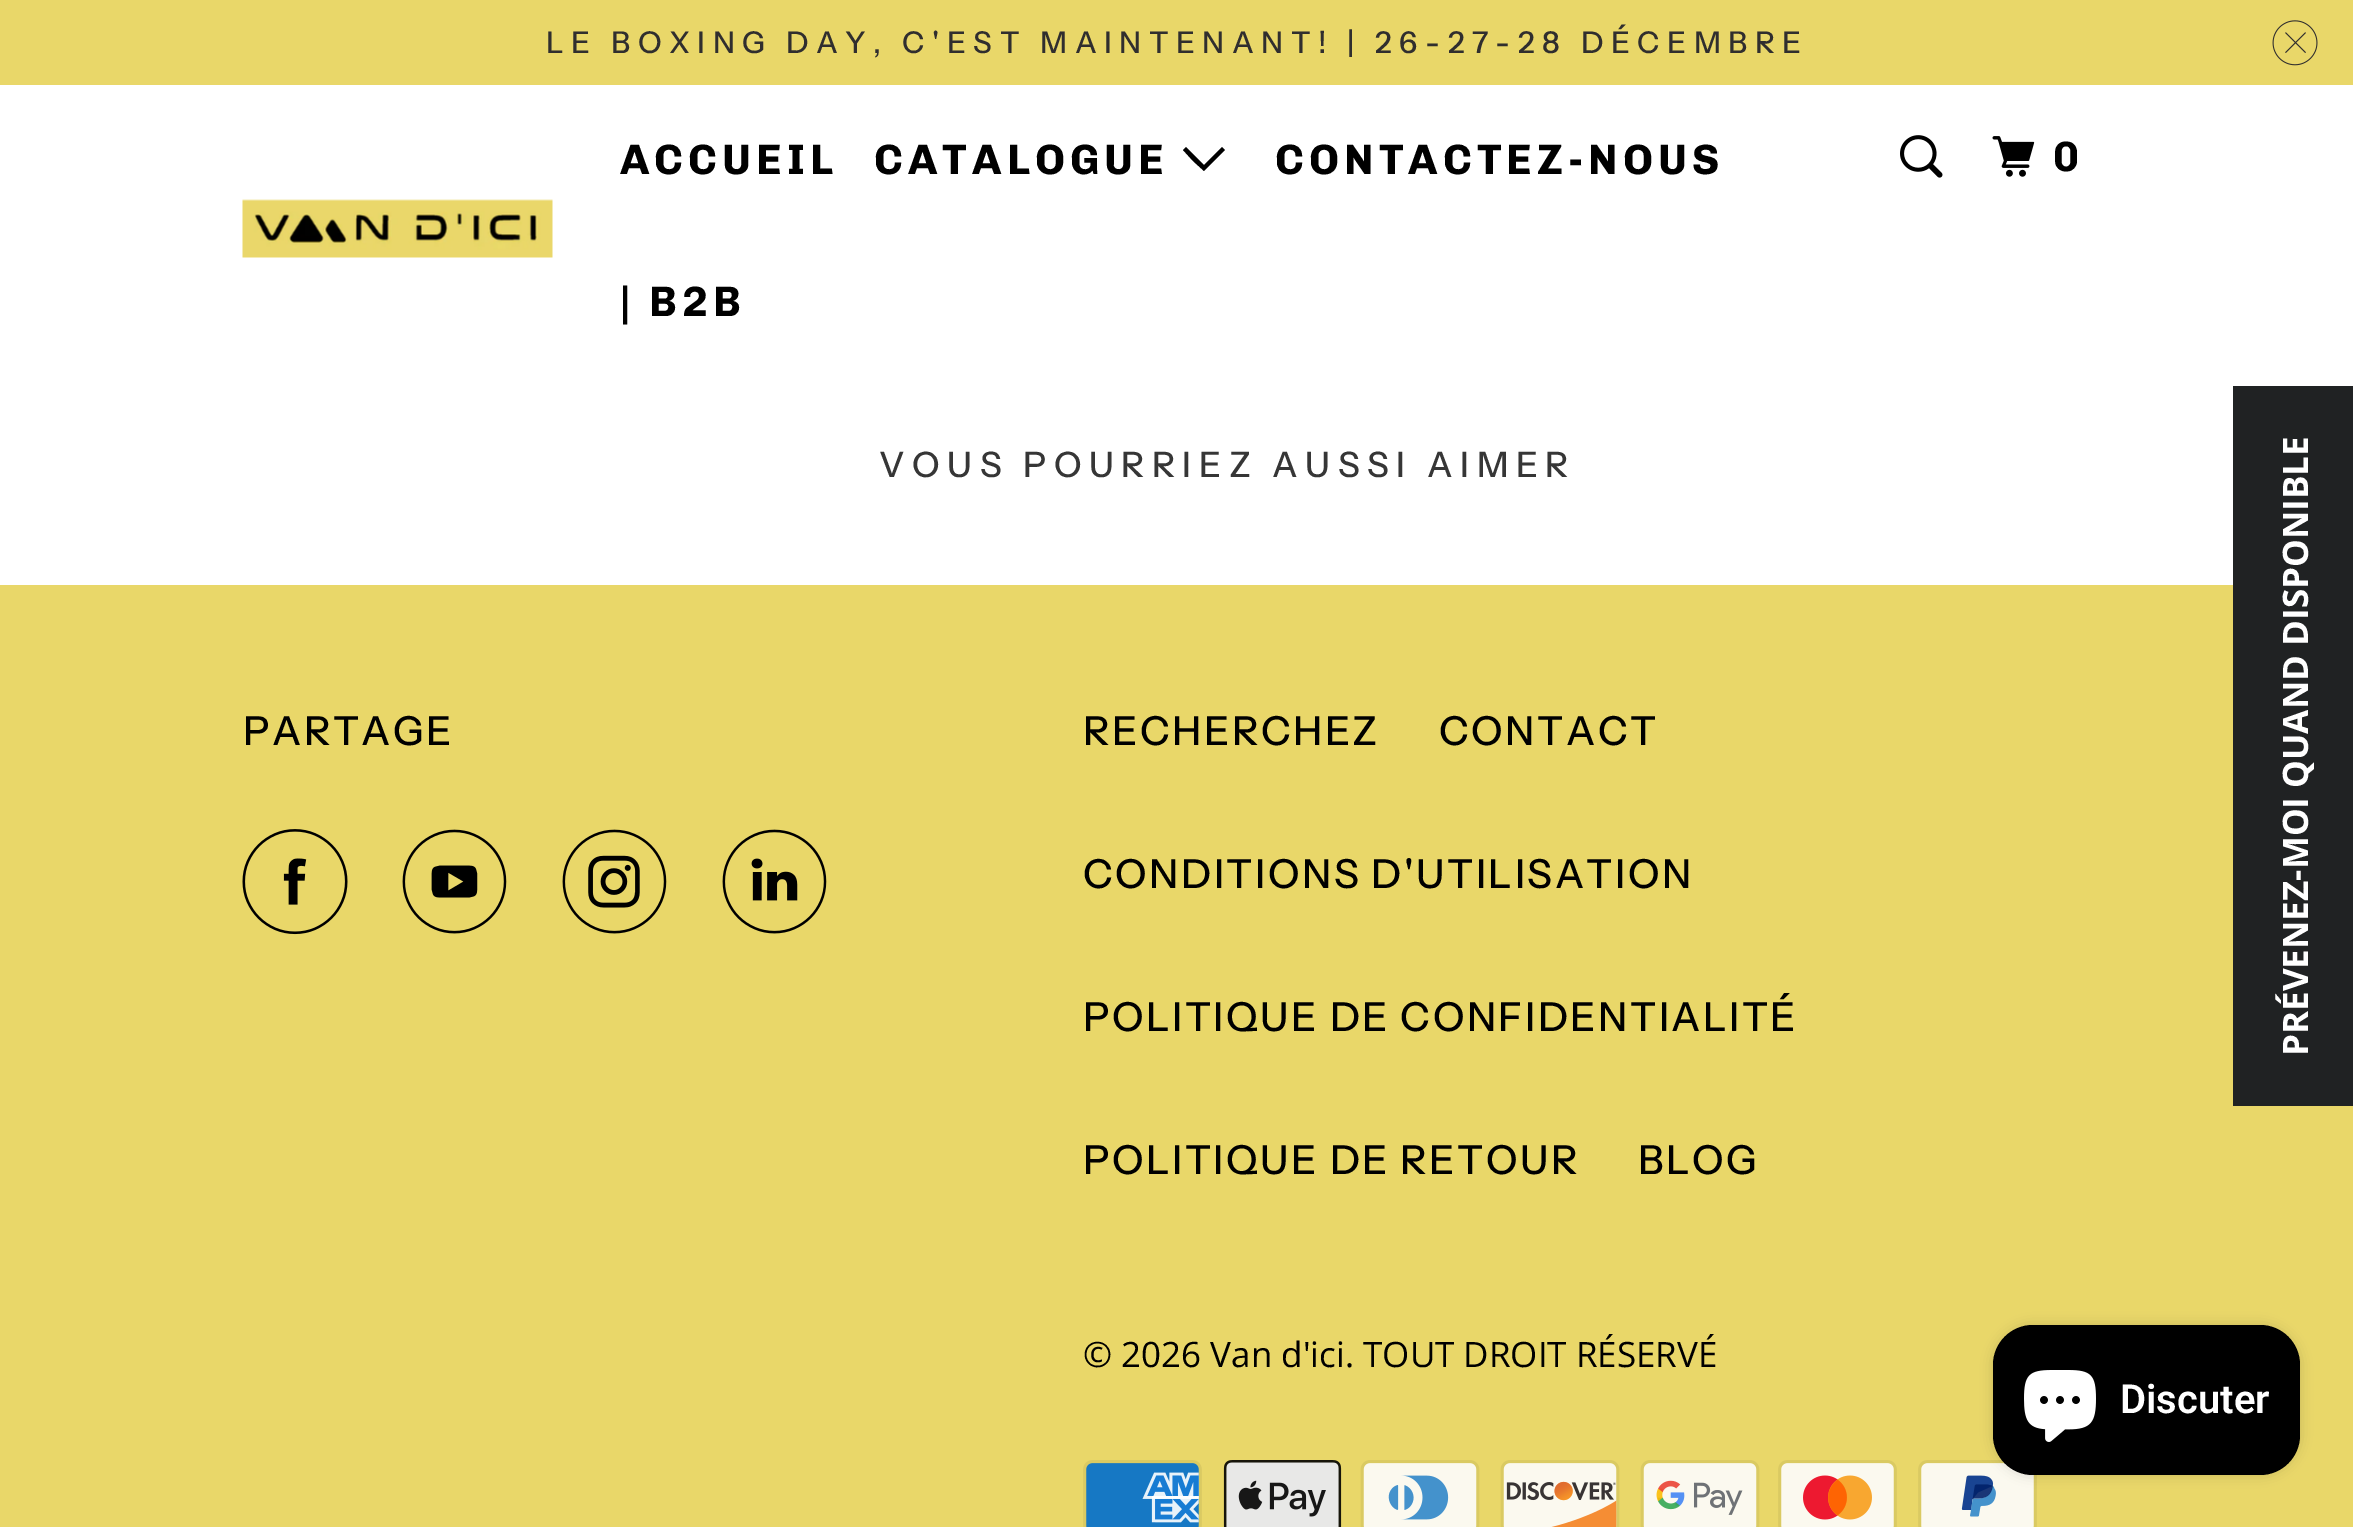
%!PS
<< /PageSize [2353 1527] /PageUsesTransparency true >> setpagedevice
/rgb { 3 { 255 div 3 1 roll } repeat setrgbcolor } def
/font { [ exch dup neg 0 0 3 -1 roll 0 0 ] selectfont } def
/text { moveto show } def
/alpha { dup .setfillconstantalpha .setstrokeconstantalpha } def
/roundrect { 5 dict begin { /r /h /w /y /x } { exch def } forall
  x r add y moveto x w add y 2 copy h add r arct x w add y h add x 1 index r arct
  x y h add x y r arct x y 2 copy exch w add exch r arct closepath end } def
/shadow { 12 dict begin { /a /b /q /h /w /y /x } { exch def } forall gsave /was 0 def
  9 -2 -9 { dup b mul 4 div /e exch def 1 sub .425 mul 2.718 exch exp 1 add a .99 .min exch div /now exch def
    1 1 now sub 1 was sub div sub alpha /was now def
    w h .min e 2 mul add 0 gt { x e sub y e sub w e 2 mul add h e 2 mul add
      q e add b .6 mul add w h .min 2 div e add .min 0 .max roundrect fill } if } for grestore end } def
/picture { 5 dict begin { /h /w /y /x /name } { exch def } forall
  gsave x y translate w h scale
  w h 8 [w 0 0 h 0 0] name (r) file false 3 colorimage grestore end } def
0 .pushpdf14devicefilter
0 1527 translate 1 -1 scale
4 setmiterlimit
255 255 255 rgb
0 0 2353 1527 rectfill
233 215 105 rgb
0 0 2353 85 rectfill
(img_01.rgb) 2272 20 46 46 picture
(img_02.rgb) 242 199 311 59 picture
0 0 0 rgb
1193 161 moveto -10 -11 rlineto 3 -3 rlineto 18 18 rlineto 18 -18 rlineto 3 3 rlineto -21 21 rlineto closepath fill
(img_03.rgb) 1900 135 43 43 picture
(img_04.rgb) 1992 136 43 41 picture
233 215 105 rgb
0 585 2353 942 rectfill
(img_05.rgb) 242 829 106 106 picture
(img_06.rgb) 402 829 105 105 picture
(img_07.rgb) 562 829 105 105 picture
(img_08.rgb) 722 829 105 105 picture
(img_09.rgb) 1083 1460 119 67 picture
(img_10.rgb) 1223 1460 119 67 picture
(img_11.rgb) 1360 1460 120 67 picture
(img_12.rgb) 1500 1460 120 67 picture
(img_13.rgb) 1640 1460 120 67 picture
(img_14.rgb) 1778 1460 119 67 picture
(img_15.rgb) 1918 1460 119 67 picture
32 34 35 rgb
2233 386 120 720 rectfill
0 0 0 rgb
1993 1325 307 150 40 6 0.15 shadow
1993 1325 307 150 40 roundrect fill
(img_16.rgb) 2024 1370 72 72 picture
/InstrumentSans-Medium 30 font
48 46 46 rgb
546 53 moveto 7.5 0 (LE BOXING DAY, C'EST MAINTENANT! | 26-27-28 DÉCEMBRE) ashow
/Chivo-Bold 42.5 font
0 0 0 rgb
620 174 moveto 5 0 (ACCUEIL) ashow
874 174 moveto 5 0 (CATALOGUE) ashow
1275 174 moveto 5 0 (CONTACTEZ-NOUS) ashow
620 316 moveto 5 0 (| B2B) ashow
2053 171 moveto 5 0 (0) ashow
/InstrumentSans-Medium 35 font
54 54 54 rgb
879 477 moveto 7.5 0 (VOUS POURRIEZ AUSSI AIMER) ashow
/InstrumentSans-Medium 40 font
0 0 0 rgb
243 745 moveto 2.5 0 (PARTAGE) ashow
1083 745 moveto 2.5 0 (RECHERCHEZ) ashow
1439 745 moveto 2.5 0 (CONTACT) ashow
1083 888 moveto 2.5 0 (CONDITIONS D'UTILISATION) ashow
1083 1031 moveto 2.5 0 (POLITIQUE DE CONFIDENTIALITÉ) ashow
1083 1174 moveto 2.5 0 (POLITIQUE DE RETOUR) ashow
1638 1174 moveto 2.5 0 (BLOG) ashow
/OpenSans-Regular 35 font
(© 2026 Van d'ici. TOUT DROIT RÉSERVÉ) 1083 1367 text
/OpenSans-Bold 35 font
255 255 255 rgb
gsave 2308 1056 translate -90 rotate 0 0 moveto (PRÉVENEZ-MOI QUAND DISPONIBLE) show grestore
/Roboto-SemiBold 40 font
(Discuter) 2120 1413 text
.poppdf14devicefilter showpage
